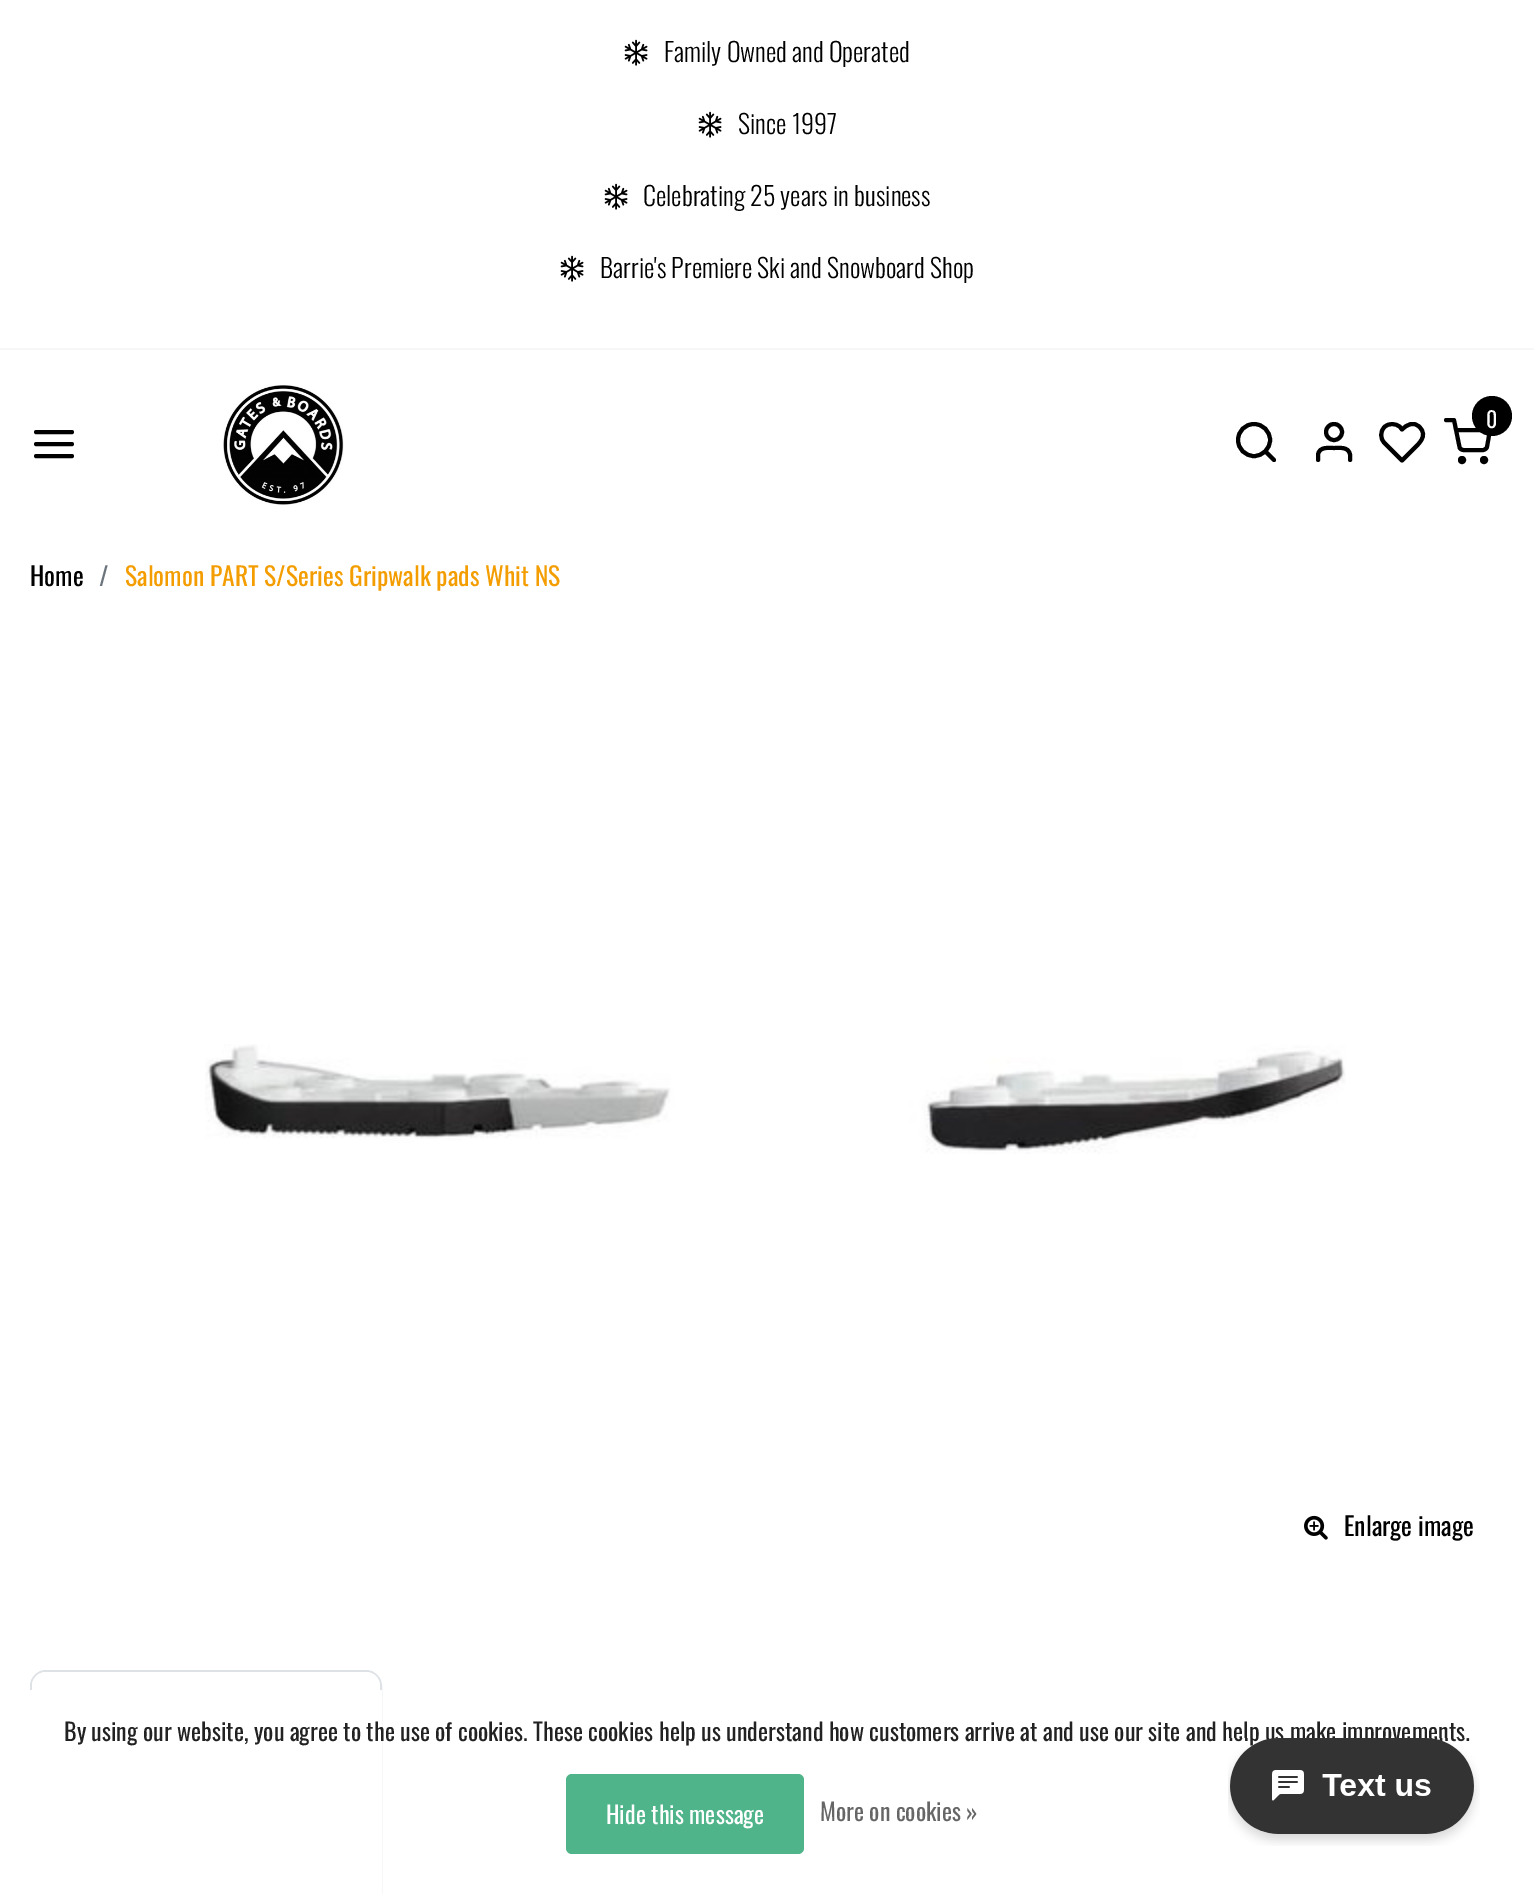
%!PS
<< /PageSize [1534 1894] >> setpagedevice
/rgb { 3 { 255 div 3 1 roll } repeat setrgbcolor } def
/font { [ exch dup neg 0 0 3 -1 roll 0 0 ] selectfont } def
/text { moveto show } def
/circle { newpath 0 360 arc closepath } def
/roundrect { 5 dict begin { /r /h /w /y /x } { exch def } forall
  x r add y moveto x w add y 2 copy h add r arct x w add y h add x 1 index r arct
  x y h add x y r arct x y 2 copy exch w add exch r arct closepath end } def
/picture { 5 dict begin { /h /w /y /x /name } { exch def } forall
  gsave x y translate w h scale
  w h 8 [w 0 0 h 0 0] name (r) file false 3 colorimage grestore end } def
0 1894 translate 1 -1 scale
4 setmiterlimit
255 255 255 rgb
0 0 1534 1894 rectfill
247 247 247 rgb
0 348 1534 2 rectfill
(img_01.rgb) 624 39 24 27 picture
(img_01.rgb) 698 111 24 27 picture
(img_01.rgb) 604 183 24 27 picture
(img_01.rgb) 560 255 24 27 picture
0 0 0 rgb
4 setlinewidth
1 setlinecap
1 setlinejoin
36 444 moveto 36 0 rlineto 36 432 moveto 36 0 rlineto 36 456 moveto 36 0 rlineto stroke
(img_02.rgb) 223 385 121 120 picture
0 setlinecap
0 setlinejoin
1254 440 16 circle stroke
1 setlinecap
1 setlinejoin
1274 460 moveto -8.5 -8.5 rlineto stroke
1350 460 moveto 0 -5.5 rlineto -1.5 -8 -10 -6.5 -16 -6.5 rcurveto -6 0 -14.5 -1.5 -16 6.5 rcurveto 0 5.5 rlineto stroke
0 setlinecap
0 setlinejoin
1334 432 8 circle stroke
1 setlinecap
1 setlinejoin
1419.5 427 moveto -6 -6 -12.5 -2.5 -17.5 2.5 rcurveto -2 -2.5 rlineto -4.5 -4 -11.5 -4 -15.5 0 rcurveto -4.5 4.5 -4.5 11.5 0 16 rcurveto 17.5 17.5 rlineto 10.5 -10.5 rlineto 6 -6 16 -14 7 -23 rcurveto closepath stroke
1446 420 moveto 8 0 rlineto 5.5 27 rlineto 0 1.5 2 3 4 3 rcurveto 19.5 0 rlineto 1.5 0 3.5 -1.5 4 -3 rcurveto 3 -17 rlineto -34 0 rlineto stroke
1492 416 20 circle fill
0 setlinecap
0 setlinejoin
1462 460 2 circle stroke
1484 460 2 circle stroke
(img_03.rgb) 205 1044 1141 110 picture
(img_04.rgb) 1304 1515 24 25 picture
222 226 230 rgb
2 setlinewidth
31 1671 350 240 15 roundrect stroke
(img_05.rgb) 32 1672 348 18 picture
255 255 255 rgb
30 1690 352 204 rectfill
80 180 138 rgb
566 1774 238 80 6 roundrect fill
/Oswald-Light 26 font
0 0 0 rgb
(Family Owned and Operated) 664 62 text
(Since 1997) 738 134 text
(Celebrating 25 years in business) 643 206 text
(Barrie's Premiere Ski and Snowboard Shop) 600 278 text
/Oswald-Regular 22 font
255 255 255 rgb
(0) 1486 428 text
/Oswald-Regular 25.6 font
0 0 0 rgb
(Home) 30 586 text
108 117 125 rgb
(/) 99 586 text
244 157 0 rgb
(Salomon PART S/Series Gripwalk pads Whit NS) 125 586 text
0 0 0 rgb
(Enlarge image) 1344 1536 text
/Oswald-Regular 24 font
34 34 34 rgb
(By using our website, you agree to the use of cookies. These cookies help us understand how customers arrive at and use our site and help us make improvements.) 64 1741 text
255 255 255 rgb
(Hide this message) 606 1824 text
102 102 102 rgb
(More on cookies ») 820 1821 text
(img_06.rgb) 1228 1738 252 108 picture
showpage
